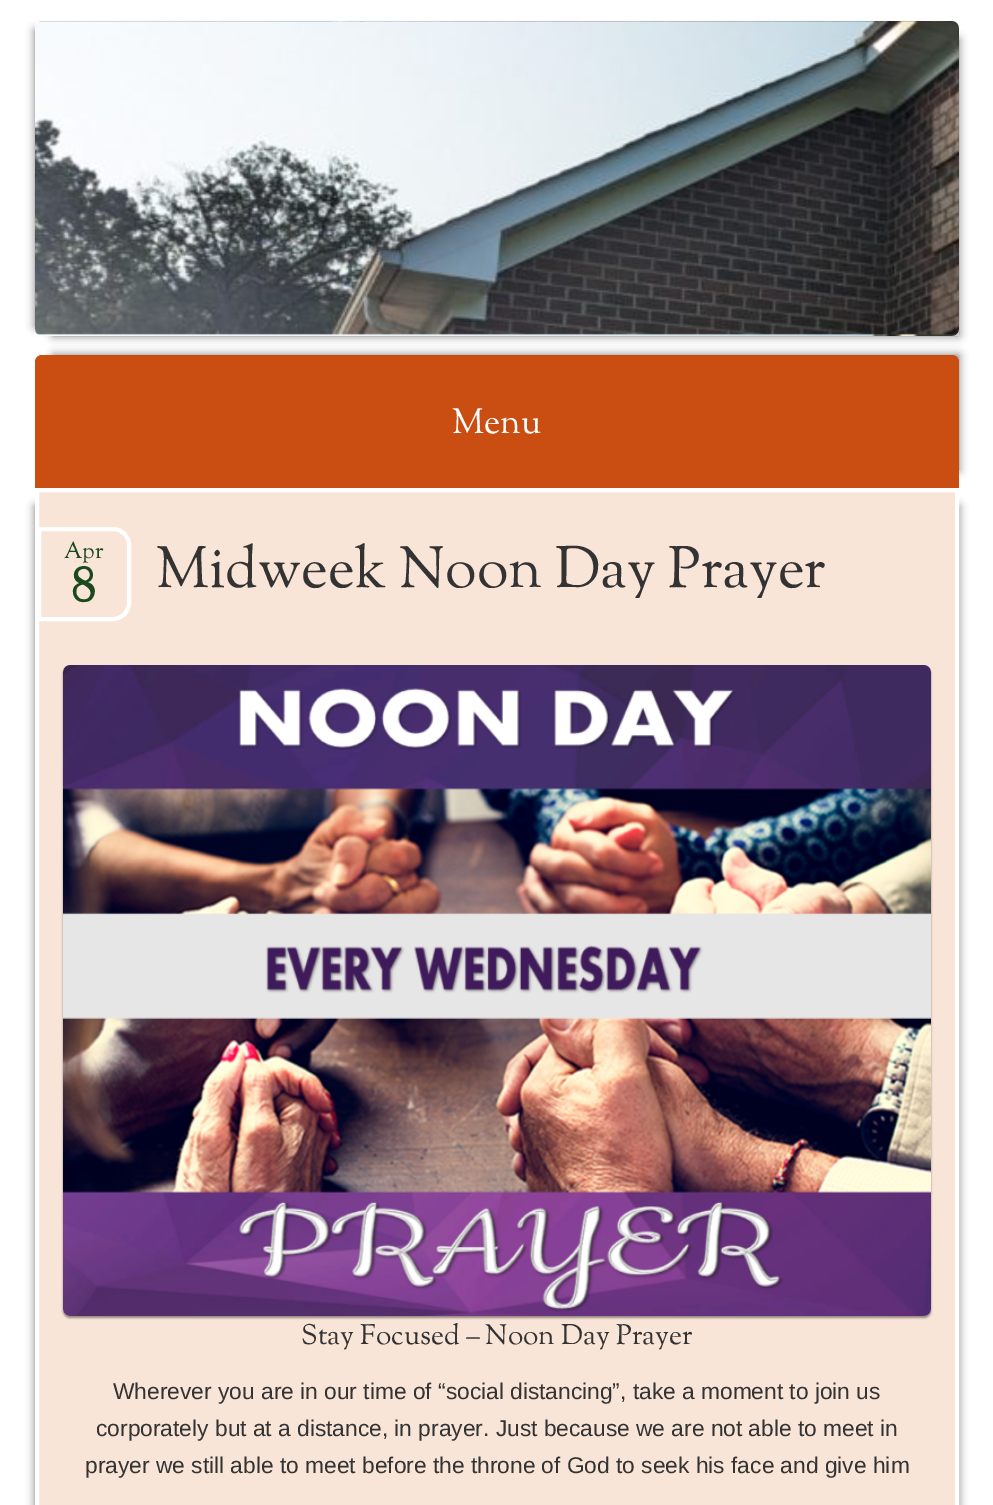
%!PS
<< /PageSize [993 1505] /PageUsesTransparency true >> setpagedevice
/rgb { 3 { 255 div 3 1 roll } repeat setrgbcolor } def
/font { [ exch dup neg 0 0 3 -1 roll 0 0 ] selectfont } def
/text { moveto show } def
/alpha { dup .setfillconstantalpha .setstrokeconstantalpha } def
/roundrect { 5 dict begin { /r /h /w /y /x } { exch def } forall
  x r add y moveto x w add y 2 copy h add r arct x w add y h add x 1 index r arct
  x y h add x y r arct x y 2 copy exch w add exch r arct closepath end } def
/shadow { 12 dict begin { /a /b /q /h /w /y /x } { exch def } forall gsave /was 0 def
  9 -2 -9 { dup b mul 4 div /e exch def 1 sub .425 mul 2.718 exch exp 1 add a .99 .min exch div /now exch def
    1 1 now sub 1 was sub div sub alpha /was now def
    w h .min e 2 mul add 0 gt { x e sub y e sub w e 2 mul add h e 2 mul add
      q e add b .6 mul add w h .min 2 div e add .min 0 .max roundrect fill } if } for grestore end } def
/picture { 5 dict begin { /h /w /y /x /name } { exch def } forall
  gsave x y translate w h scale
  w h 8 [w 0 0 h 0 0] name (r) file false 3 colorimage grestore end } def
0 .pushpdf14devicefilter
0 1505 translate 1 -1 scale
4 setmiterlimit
255 255 255 rgb
0 0 993 1505 rectfill
0 0 0 rgb
35 30 907 297 0 4.5 0.5 shadow
53 39 906 297 0 4.5 0.5 shadow
(img_01.rgb) 35 21 924 315 picture
53 355 906 116 0 4.5 0.5 shadow
202 77 17 rgb
42 355 moveto 910 0 rlineto 4 0 7 3 7 7 rcurveto 0 126 rlineto -924 0 rlineto 0 -126 rlineto 0 -4 3 -7 7 -7 rcurveto closepath fill
0 0 0 rgb
35 506 907 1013 0 4.5 0.5 shadow
53 506 906 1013 0 4.5 0.5 shadow
249 228 216 rgb
37 490 moveto 920 0 rlineto 0 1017 rlineto -920 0 rlineto closepath gsave fill grestore
255 255 255 rgb
4 setlinewidth
stroke
249 228 216 rgb
39 529 moveto 74 0 rlineto 9 0 16 7 16 16 rcurveto 0 58 rlineto 0 9 -7 16 -16 16 rcurveto -74 0 rlineto closepath gsave fill grestore
255 255 255 rgb
stroke
0 0 0 rgb
63 667 868 651 7 1 0.4 shadow
(img_02.rgb) 63 665 868 651 picture
/SortsMillGoudy-Regular 35 font
255 255 255 rgb
(Menu) 452 433 text
/SortsMillGoudy-Regular 22.75 font
28 72 29 rgb
(Apr) 64 558 text
/SortsMillGoudy-Bold 49 font
(8) 71 601 text
/SortsMillGoudy-Regular 57.75 font
51 51 51 rgb
(Midweek Noon Day Prayer) 156 587 text
/SortsMillGoudy-Regular 28 font
(Stay Focused – Noon Day Prayer) 301 1344 text
/LiberationSans-Regular 22.75 font
(Wherever you are in our time of “social distancing”, take a moment to join us) 113 1399 text
(corporately but at a distance, in prayer. Just because we are not able to meet in) 96 1436 text
(prayer we still able to meet before the throne of God to seek his face and give him) 85 1473 text
.poppdf14devicefilter showpage
